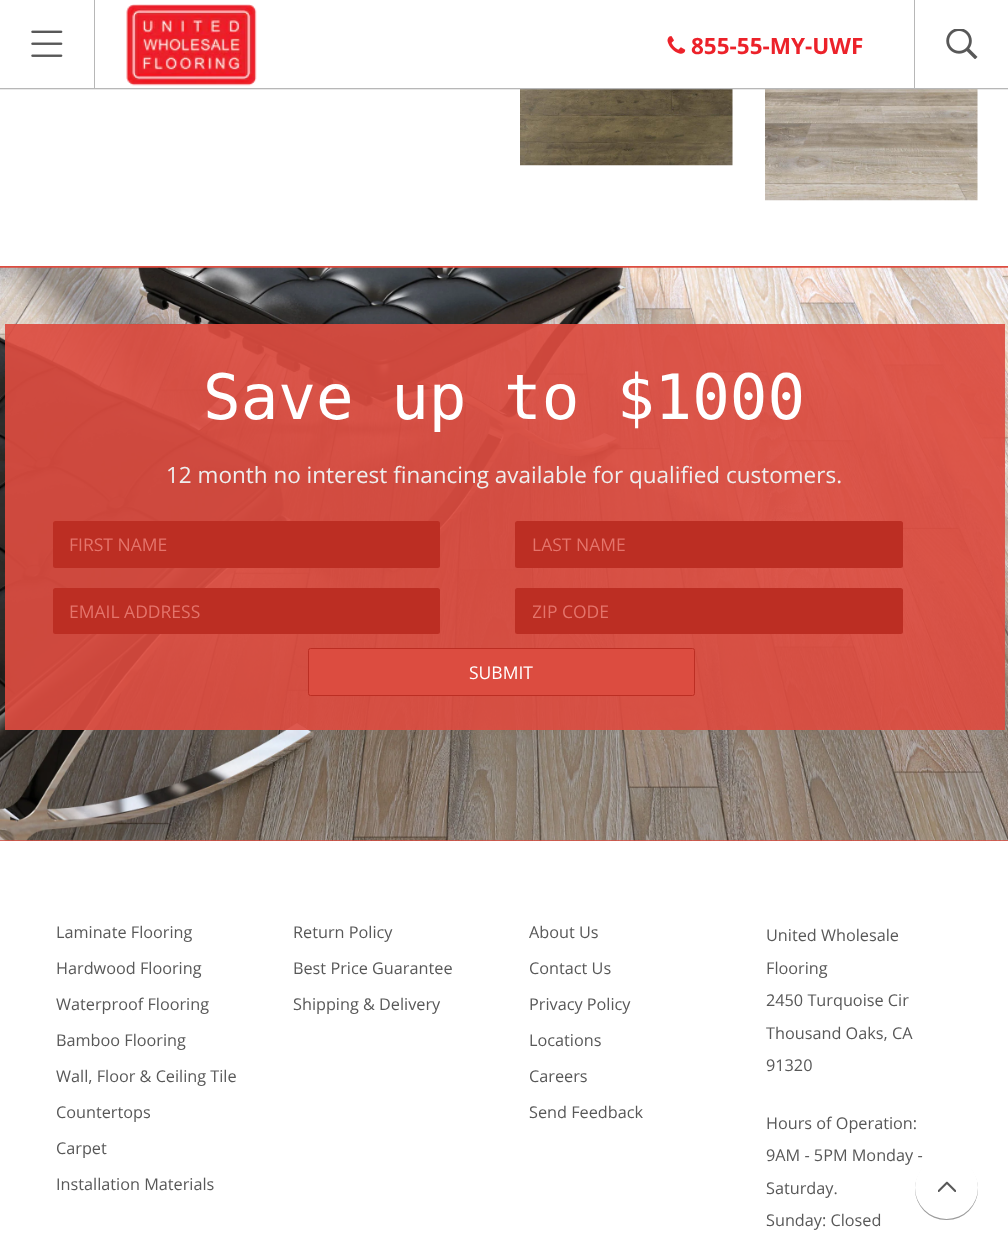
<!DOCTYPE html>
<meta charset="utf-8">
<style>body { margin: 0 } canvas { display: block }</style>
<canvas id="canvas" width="1008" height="1256"></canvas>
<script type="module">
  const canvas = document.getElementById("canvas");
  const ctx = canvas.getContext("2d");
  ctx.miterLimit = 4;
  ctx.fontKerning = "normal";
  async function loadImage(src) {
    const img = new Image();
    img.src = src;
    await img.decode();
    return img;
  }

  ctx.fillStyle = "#ffffff";
  ctx.fillRect(0, 0, 1008, 1256);
  ctx.drawImage(await loadImage("img5.png"), 520, 89, 213, 77);
  ctx.drawImage(await loadImage("img6.png"), 765, 89, 213, 112);
  ctx.fillStyle = "rgba(183, 183, 183, 0.3)";
  ctx.beginPath();
  ctx.moveTo(0, 89);
  ctx.lineTo(0, 90);
  ctx.lineTo(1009, 90);
  ctx.lineTo(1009, 1);
  ctx.lineTo(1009, 89);
  ctx.closePath();
  ctx.fill();
  ctx.fillStyle = "#b7b7b7";
  ctx.fillRect(0, 88, 1008, 1);
  ctx.drawImage(await loadImage("img1.png"), 31, 30, 32, 27);
  ctx.fillRect(94, 0, 1, 88);
  ctx.drawImage(await loadImage("img2.png"), 126, 4, 131, 82);
  ctx.drawImage(await loadImage("img3.png"), 667, 36, 19, 18);
  ctx.font = "bold 22.5px Open Sans";
  ctx.fillStyle = "#ec222a";
  ctx.fillText("855-55-MY-UWF", 691, 54);
  ctx.fillStyle = "#b7b7b7";
  ctx.fillRect(914, 0, 1, 88);
  ctx.drawImage(await loadImage("img4.png"), 946, 29, 32, 30);
  ctx.fillStyle = "#dc4c40";
  ctx.beginPath();
  ctx.moveTo(0, 266);
  ctx.lineTo(0, 268);
  ctx.lineTo(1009, 268);
  ctx.lineTo(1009, 839);
  ctx.lineTo(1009, 266);
  ctx.closePath();
  ctx.fill();
  ctx.beginPath();
  ctx.moveTo(0, 840);
  ctx.lineTo(0, 841);
  ctx.lineTo(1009, 841);
  ctx.lineTo(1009, 269);
  ctx.lineTo(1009, 840);
  ctx.closePath();
  ctx.fill();
  ctx.drawImage(await loadImage("img7.png"), 0, 267, 1008, 574);
  ctx.fillStyle = "rgba(220, 76, 64, 0.92)";
  ctx.fillRect(5, 324, 1000, 406);
  ctx.font = "62.5px DejaVu Sans Mono";
  ctx.fillStyle = "#ffffff";
  ctx.fillText("Save up to $1000", 203, 419);
  ctx.font = "22.5px Open Sans";
  ctx.fillStyle = "#eeeeee";
  ctx.fillText("12 month no interest financing available for qualified customers.", 166, 483);
  ctx.fillStyle = "#bc2e23";
  ctx.beginPath();
  ctx.roundRect(53, 521, 387, 47, 2.5);
  ctx.fill();
  ctx.font = "17.5px Open Sans";
  ctx.fillStyle = "#e4746b";
  ctx.fillText("FIRST NAME", 69, 551);
  ctx.fillStyle = "#bc2e23";
  ctx.beginPath();
  ctx.roundRect(515, 521, 388, 47, 2.5);
  ctx.fill();
  ctx.fillStyle = "#e4746b";
  ctx.fillText("LAST NAME", 532, 551);
  ctx.fillStyle = "#bc2e23";
  ctx.beginPath();
  ctx.roundRect(53, 588, 387, 46, 2.5);
  ctx.fill();
  ctx.fillStyle = "#e4746b";
  ctx.fillText("EMAIL ADDRESS", 69, 618);
  ctx.fillStyle = "#bc2e23";
  ctx.beginPath();
  ctx.roundRect(515, 588, 388, 46, 2.5);
  ctx.fill();
  ctx.save();
  ctx.beginPath();
  ctx.rect(533, 599, 352, 24);
  ctx.clip();
  ctx.fillStyle = "#e4746b";
  ctx.fillText("ZIP CODE", 532, 618);
  ctx.restore();
  ctx.fillStyle = "#dc4c40";
  ctx.beginPath();
  ctx.roundRect(308.5, 648.5, 386, 47, 2);
  ctx.fill();
  ctx.strokeStyle = "#bc2e23";
  ctx.stroke();
  ctx.fillStyle = "#ffffff";
  ctx.fillText("SUBMIT", 469, 679);
  ctx.font = "16.25px Open Sans";
  ctx.fillStyle = "#585858";
  ctx.fillText("Laminate Flooring", 56, 938);
  ctx.fillText("Hardwood Flooring", 56, 974);
  ctx.fillText("Waterproof Flooring", 56, 1010);
  ctx.fillText("Bamboo Flooring", 56, 1046);
  ctx.fillText("Wall, Floor & Ceiling Tile", 56, 1082);
  ctx.fillText("Countertops", 56, 1118);
  ctx.fillText("Carpet", 56, 1154);
  ctx.fillText("Installation Materials", 56, 1190);
  ctx.fillText("Return Policy", 293, 938);
  ctx.fillText("Best Price Guarantee", 293, 974);
  ctx.fillText("Shipping & Delivery", 293, 1010);
  ctx.fillText("About Us", 529, 938);
  ctx.fillText("Contact Us", 529, 974);
  ctx.fillText("Privacy Policy", 529, 1010);
  ctx.fillText("Locations", 529, 1046);
  ctx.fillText("Careers", 529, 1082);
  ctx.fillText("Send Feedback", 529, 1118);
  ctx.fillText("United Wholesale", 766, 941);
  ctx.fillText("Flooring", 766, 974);
  ctx.fillText("2450 Turquoise Cir", 766, 1006);
  ctx.fillText("Thousand Oaks, CA", 766, 1039);
  ctx.fillText("91320", 766, 1071);
  ctx.fillText("Hours of Operation:", 766, 1129);
  ctx.fillText("9AM - 5PM Monday -", 766, 1161);
  ctx.fillText("Saturday.", 766, 1194);
  ctx.fillText("Sunday: Closed", 766, 1226);
  ctx.fillStyle = "rgba(88, 88, 88, 0.6)";
  ctx.filter = "blur(0.5px)";
  ctx.beginPath();
  ctx.roundRect(915, 1158, 63, 62, 31);
  ctx.fill();
  ctx.filter = "none";
  ctx.fillStyle = "#ffffff";
  ctx.beginPath();
  ctx.arc(946.5, 1187.5, 31.5, 0, Math.PI * 2);
  ctx.fill();
  ctx.drawImage(await loadImage("img8.png"), 938, 1181, 18, 11);
</script>
